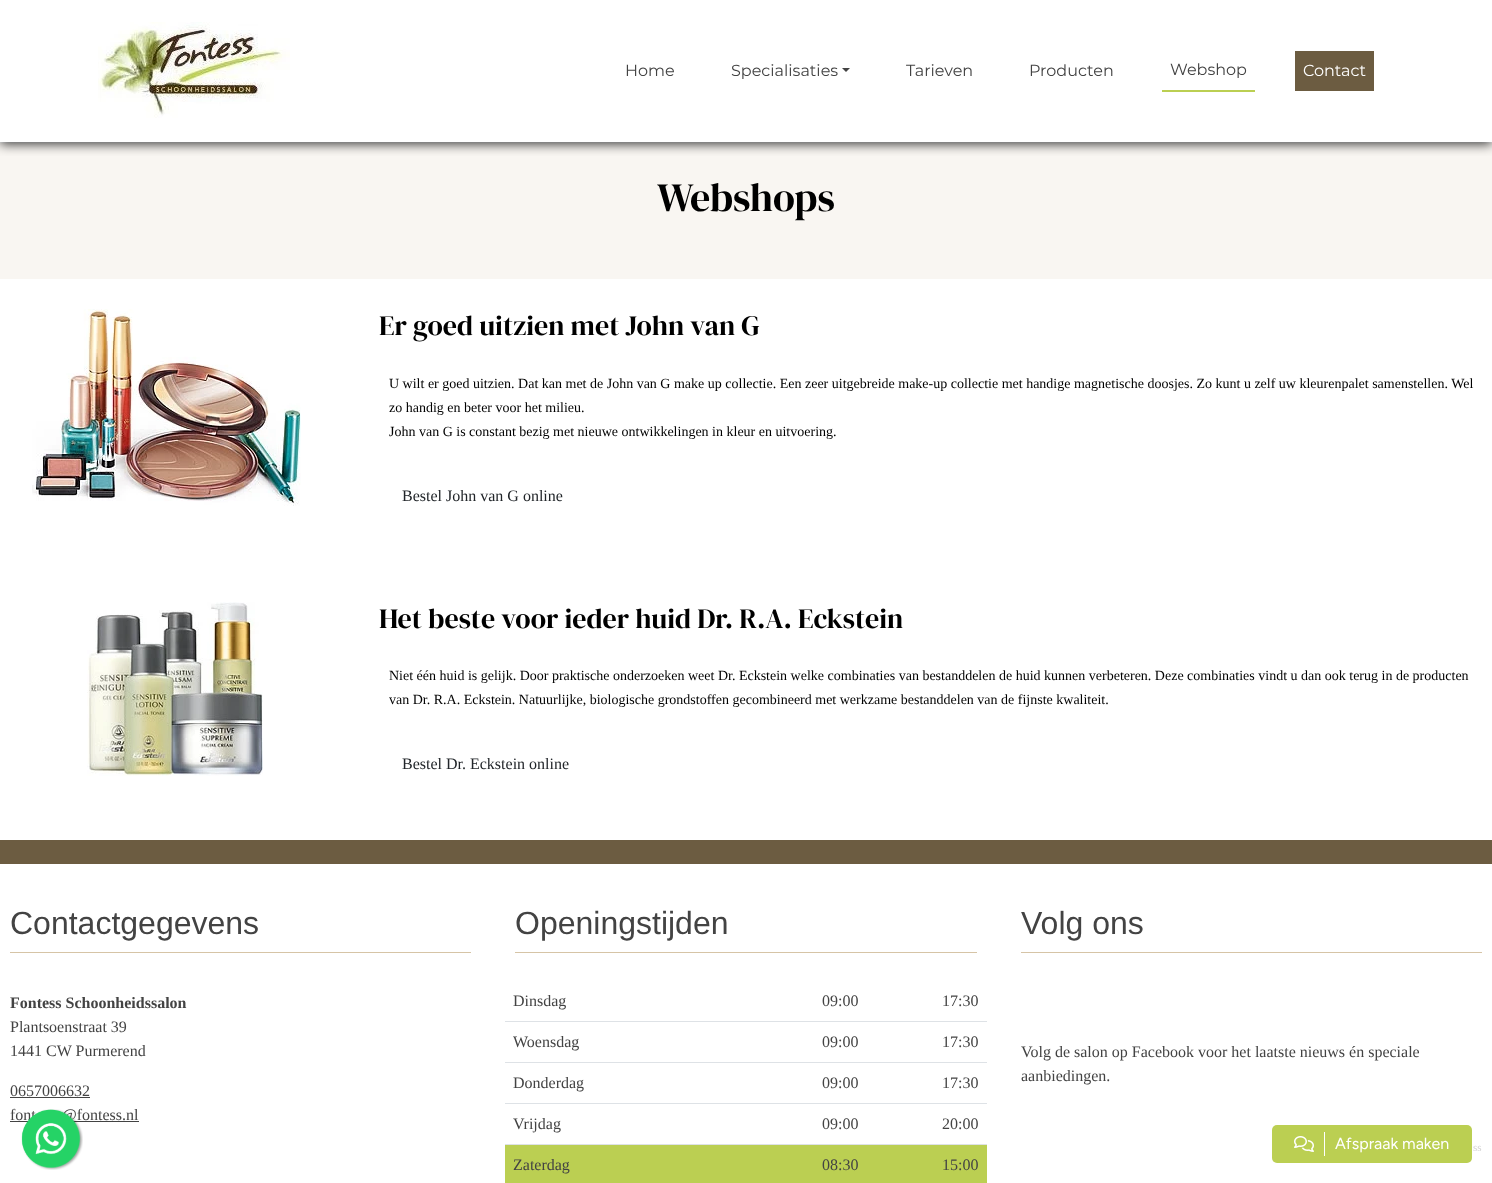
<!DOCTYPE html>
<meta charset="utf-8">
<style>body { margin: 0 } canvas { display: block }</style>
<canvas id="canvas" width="1492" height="1183"></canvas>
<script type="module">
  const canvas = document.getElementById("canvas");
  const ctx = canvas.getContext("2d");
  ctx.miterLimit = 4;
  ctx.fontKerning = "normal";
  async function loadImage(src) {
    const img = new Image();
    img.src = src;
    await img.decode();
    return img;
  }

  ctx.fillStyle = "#ffffff";
  ctx.fillRect(0, 0, 1492, 1183);
  ctx.fillStyle = "#f9f6f2";
  ctx.fillRect(0, 143, 1492, 136);
  ctx.save();
  ctx.beginPath();
  ctx.rect(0, 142, 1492, 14);
  ctx.clip();
  ctx.fillStyle = "rgba(0, 0, 0, 0.8)";
  ctx.filter = "blur(6px)";
  ctx.beginPath();
  ctx.rect(0, 2, 1492, 142);
  ctx.fill();
  ctx.filter = "none";
  ctx.restore();
  ctx.drawImage(await loadImage("img1.png"), 98, 22, 192, 96);
  ctx.font = "100 16px Montserrat";
  ctx.fillStyle = "#434343";
  ctx.fillText("Home", 625, 76);
  ctx.fillText("Specialisaties", 731, 76);
  ctx.beginPath();
  ctx.moveTo(842, 68);
  ctx.lineTo(850, 68);
  ctx.lineTo(846, 72);
  ctx.closePath();
  ctx.fill();
  ctx.fillText("Tarieven", 906, 76);
  ctx.fillText("Producten", 1029, 76);
  ctx.fillStyle = "#bbcf52";
  ctx.fillRect(1162, 90, 93, 2);
  ctx.fillStyle = "#434343";
  ctx.fillText("Webshop", 1170, 75);
  ctx.fillStyle = "#6c5c41";
  ctx.fillRect(1295, 51, 79, 40);
  ctx.fillStyle = "#ffffff";
  ctx.fillText("Contact", 1303, 76);
  ctx.font = "40px DM Serif Display";
  ctx.fillStyle = "#000000";
  ctx.fillText("Webshops", 657, 211);
  ctx.drawImage(await loadImage("img2.png"), 32, 309, 269, 197);
  ctx.font = "28px DM Serif Display";
  ctx.fillText("Er goed uitzien met John van G", 379, 335);
  ctx.font = "14px Liberation Serif";
  ctx.fillText("U wilt er goed uitzien. Dat kan met de John van G make up collectie. Een zeer uitgebreide make-up collectie met handige magnetische doosjes. Zo kunt u zelf uw kleurenpalet samenstellen. Wel", 389, 388);
  ctx.fillText("zo handig en beter voor het milieu.", 389, 412);
  ctx.fillText("John van G is constant bezig met nieuwe ontwikkelingen in kleur en uitvoering.", 389, 436);
  ctx.font = "16px Liberation Serif";
  ctx.fillStyle = "#212529";
  ctx.fillText("Bestel John van G online", 402, 501);
  ctx.drawImage(await loadImage("img3.png"), 87, 602, 176, 174);
  ctx.font = "28px DM Serif Display";
  ctx.fillStyle = "#000000";
  ctx.fillText("Het beste voor ieder huid Dr. R.A. Eckstein", 379, 628);
  ctx.font = "14px Liberation Serif";
  ctx.fillText("Niet één huid is gelijk. Door praktische onderzoeken weet Dr. Eckstein welke combinaties van bestanddelen de huid kunnen verbeteren. Deze combinaties vindt u dan ook terug in de producten", 389, 680);
  ctx.fillText("van Dr. R.A. Eckstein. Natuurlijke, biologische grondstoffen gecombineerd met werkzame bestanddelen van de fijnste kwaliteit.", 389, 704);
  ctx.font = "16px Liberation Serif";
  ctx.fillStyle = "#212529";
  ctx.fillText("Bestel Dr. Eckstein online", 402, 769);
  ctx.fillStyle = "#6c5c41";
  ctx.fillRect(0, 840, 1492, 24);
  ctx.fillStyle = "#d6c4a6";
  ctx.fillRect(10, 952, 461, 1);
  ctx.font = "32px Liberation Sans";
  ctx.fillStyle = "#434343";
  ctx.fillText("Contactgegevens", 10, 934);
  ctx.font = "bold 16px Liberation Serif";
  ctx.fillText("Fontess Schoonheidssalon", 10, 1008);
  ctx.font = "16px Liberation Serif";
  ctx.fillText("Plantsoenstraat 39", 10, 1032);
  ctx.fillText("1441 CW Purmerend", 10, 1056);
  ctx.fillText("0657006632", 10, 1096);
  ctx.fillRect(10, 1097, 80, 1);
  ctx.fillText("font", 10, 1120);
  ctx.fillRect(10, 1121, 129, 1);
  ctx.fillText("@fontess.nl", 62, 1120);
  ctx.fillStyle = "#d6c4a6";
  ctx.fillRect(515, 952, 462, 1);
  ctx.font = "32px Liberation Sans";
  ctx.fillStyle = "#434343";
  ctx.fillText("Openingstijden", 515, 934);
  ctx.font = "16px Liberation Serif";
  ctx.fillText("Dinsdag", 513, 1006);
  ctx.fillText("09:00", 822, 1006);
  ctx.fillStyle = "#dee2e6";
  ctx.fillRect(505, 1021, 482, 1);
  ctx.fillStyle = "#434343";
  ctx.fillText("17:30", 942, 1006);
  ctx.fillText("Woensdag", 513, 1047);
  ctx.fillText("09:00", 822, 1047);
  ctx.fillStyle = "#dee2e6";
  ctx.fillRect(505, 1062, 482, 1);
  ctx.fillStyle = "#434343";
  ctx.fillText("17:30", 942, 1047);
  ctx.fillText("Donderdag", 513, 1088);
  ctx.fillText("09:00", 822, 1088);
  ctx.fillStyle = "#dee2e6";
  ctx.fillRect(505, 1103, 482, 1);
  ctx.fillStyle = "#434343";
  ctx.fillText("17:30", 942, 1088);
  ctx.fillText("Vrijdag", 513, 1129);
  ctx.fillText("09:00", 822, 1129);
  ctx.fillStyle = "#dee2e6";
  ctx.fillRect(505, 1144, 482, 1);
  ctx.fillStyle = "#434343";
  ctx.fillText("20:00", 942, 1129);
  ctx.fillStyle = "#bbcf52";
  ctx.fillRect(505, 1145, 482, 38);
  ctx.fillStyle = "#434343";
  ctx.fillText("Zaterdag", 513, 1170);
  ctx.fillText("08:30", 822, 1170);
  ctx.fillText("15:00", 942, 1170);
  ctx.fillStyle = "#d6c4a6";
  ctx.fillRect(1021, 952, 461, 1);
  ctx.font = "32px Liberation Sans";
  ctx.fillStyle = "#434343";
  ctx.fillText("Volg ons", 1021, 934);
  ctx.font = "16px Liberation Serif";
  ctx.fillText("Volg de salon op Facebook voor het laatste nieuws én speciale", 1021, 1057);
  ctx.fillText("aanbiedingen.", 1021, 1081);
  ctx.drawImage(await loadImage("img4.png"), 21, 1109, 62, 61);
  ctx.fillStyle = "#bbcf52";
  ctx.beginPath();
  ctx.roundRect(1272, 1125, 200, 38, 5);
  ctx.fill();
  ctx.fillStyle = "#ffffff";
  ctx.fillRect(1324, 1132, 1, 24);
  ctx.drawImage(await loadImage("img5.png"), 1294, 1136, 20, 16);
  ctx.font = "300 16px Figtree";
  ctx.fillText("Afspraak maken", 1335, 1149);
  ctx.font = "11px Liberation Serif";
  ctx.fillStyle = "#d3d3d3";
  ctx.fillText("ss", 1473, 1151);
</script>
